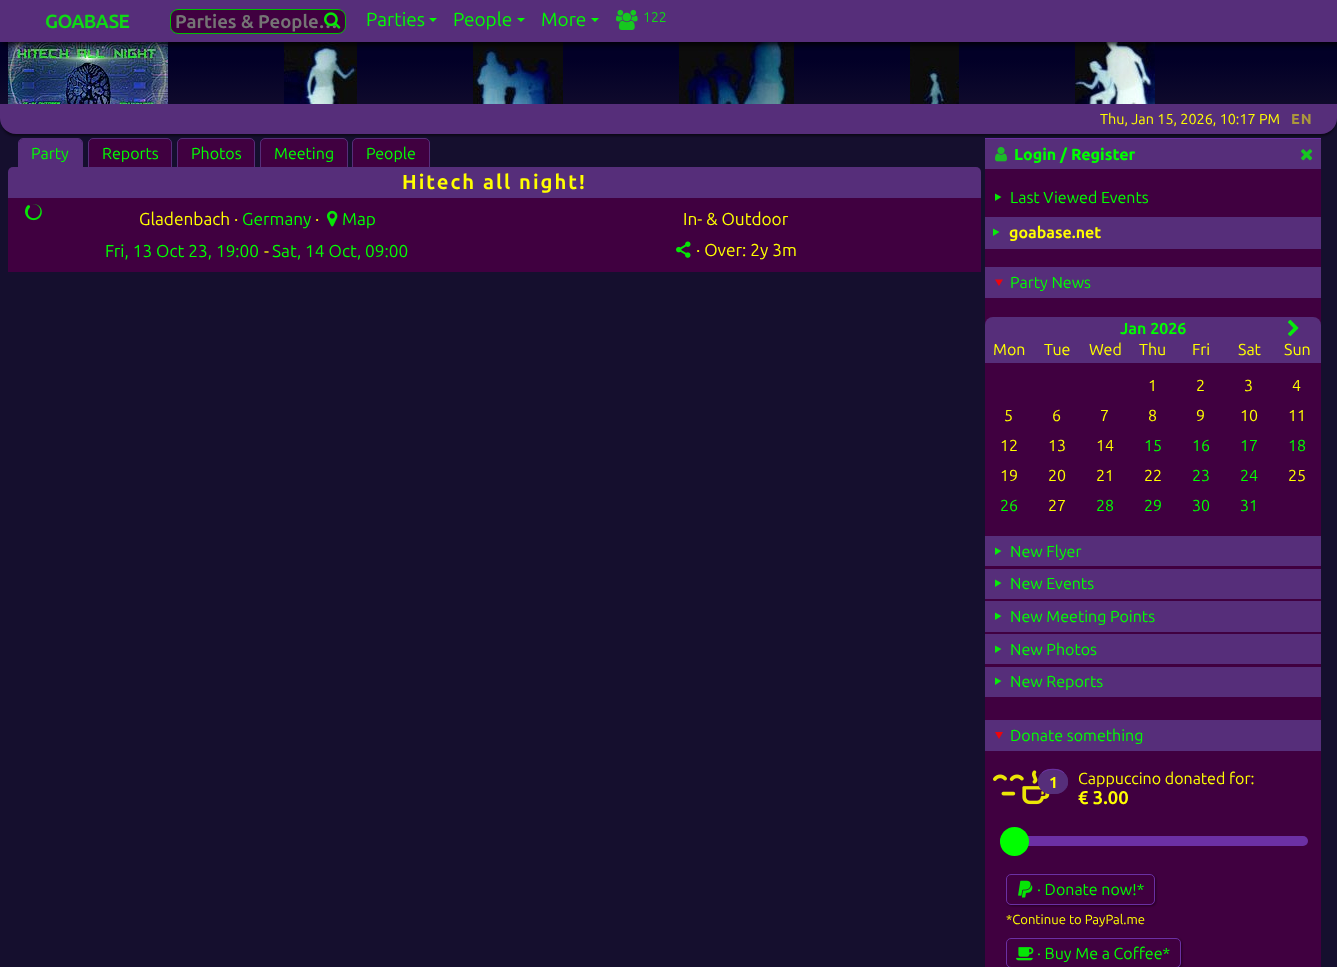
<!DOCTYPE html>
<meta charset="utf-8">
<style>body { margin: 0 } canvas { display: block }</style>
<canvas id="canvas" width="1337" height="967"></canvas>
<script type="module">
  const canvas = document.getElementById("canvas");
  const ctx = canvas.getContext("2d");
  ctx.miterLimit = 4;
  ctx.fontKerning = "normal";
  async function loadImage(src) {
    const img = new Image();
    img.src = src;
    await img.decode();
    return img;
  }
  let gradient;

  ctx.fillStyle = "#150f2e";
  ctx.fillRect(0, 0, 1337, 967);
  gradient = ctx.createLinearGradient(669, 0, 669, 124);
  gradient.addColorStop(0.48, "#020027");
  gradient.addColorStop(1, "#150f2e");
  ctx.fillStyle = gradient;
  ctx.fillRect(0, 42, 1337, 62);
  ctx.drawImage(await loadImage("img3.png"), 8, 42, 160, 62);
  ctx.drawImage(await loadImage("img4.png"), 284, 42, 73, 62);
  ctx.drawImage(await loadImage("img5.png"), 473, 42, 90, 62);
  ctx.drawImage(await loadImage("img6.png"), 679, 42, 115, 62);
  ctx.drawImage(await loadImage("img7.png"), 910, 42, 49, 62);
  ctx.drawImage(await loadImage("img8.png"), 1075, 42, 80, 62);
  ctx.fillStyle = "rgba(0, 0, 0, 0.8)";
  ctx.filter = "blur(2.5px)";
  ctx.beginPath();
  ctx.rect(3, 3, 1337, 42);
  ctx.fill();
  ctx.filter = "none";
  ctx.fillStyle = "#562e7a";
  ctx.fillRect(0, 0, 1337, 42);
  ctx.letterSpacing = "-0.75px";
  ctx.font = "bold 19px Ubuntu";
  ctx.fillStyle = "#0fd916";
  ctx.fillText("GOABASE", 45, 28);
  ctx.fillStyle = "#400040";
  ctx.beginPath();
  ctx.roundRect(170.5, 9.5, 175, 24, 7.5);
  ctx.fill();
  ctx.strokeStyle = "#00bf00";
  ctx.stroke();
  ctx.letterSpacing = "0px";
  ctx.font = "bold 18.5px Ubuntu";
  ctx.fillStyle = "#757575";
  ctx.fillText("Parties & People…", 175, 28);
  ctx.drawImage(await loadImage("img1.png"), 324, 12, 17, 17);
  ctx.font = "19px Ubuntu";
  ctx.fillStyle = "#00ff00";
  ctx.fillText("Parties", 366, 26);
  ctx.beginPath();
  ctx.moveTo(429, 18);
  ctx.lineTo(437, 18);
  ctx.lineTo(433, 22);
  ctx.closePath();
  ctx.fill();
  ctx.fillText("People", 453, 26);
  ctx.beginPath();
  ctx.moveTo(517, 18);
  ctx.lineTo(525, 18);
  ctx.lineTo(521, 22);
  ctx.closePath();
  ctx.fill();
  ctx.fillText("More", 541, 26);
  ctx.beginPath();
  ctx.moveTo(591, 18);
  ctx.lineTo(599, 18);
  ctx.lineTo(595, 22);
  ctx.closePath();
  ctx.fill();
  ctx.drawImage(await loadImage("img2.png"), 616, 9, 22, 21);
  ctx.font = "14px Ubuntu";
  ctx.fillStyle = "#0fd916";
  ctx.fillText("122", 643, 22);
  ctx.beginPath();
  ctx.roundRect(18.5, 138.5, 64, 29, [4.5, 4.5, 0, 0]);
  ctx.strokeStyle = "#562e7a";
  ctx.stroke();
  ctx.fillStyle = "#562e7a";
  ctx.beginPath();
  ctx.roundRect(19, 139, 63, 28, [4, 4, 0, 0]);
  ctx.fill();
  ctx.fillStyle = "#400040";
  ctx.beginPath();
  ctx.roundRect(88.5, 138.5, 83, 29, [4.5, 4.5, 0, 0]);
  ctx.fill();
  ctx.stroke();
  ctx.beginPath();
  ctx.roundRect(177.5, 138.5, 77, 29, [4.5, 4.5, 0, 0]);
  ctx.fill();
  ctx.stroke();
  ctx.beginPath();
  ctx.roundRect(260.5, 138.5, 87, 29, [4.5, 4.5, 0, 0]);
  ctx.fill();
  ctx.stroke();
  ctx.beginPath();
  ctx.roundRect(352.5, 138.5, 77, 29, [4.5, 4.5, 0, 0]);
  ctx.fill();
  ctx.stroke();
  ctx.fillStyle = "#562e7a";
  ctx.fillRect(985, 139, 336, 30);
  ctx.fillStyle = "#6c30a4";
  ctx.fillRect(985, 138, 336, 1);
  ctx.fillStyle = "rgba(0, 0, 0, 0.5)";
  ctx.filter = "blur(1px)";
  ctx.beginPath();
  ctx.roundRect(2, 110, 1333, 26, 14);
  ctx.fill();
  ctx.filter = "none";
  ctx.fillStyle = "#562e7a";
  ctx.beginPath();
  ctx.roundRect(0, 104, 1337, 30, [0, 0, 16, 16]);
  ctx.fill();
  ctx.font = "14.4px Ubuntu";
  ctx.fillStyle = "#ffff00";
  ctx.fillText("Thu, Jan 15, 2026, 10:17 PM", 1100, 124);
  ctx.letterSpacing = "1px";
  ctx.font = "800 14.4px Ubuntu";
  ctx.fillStyle = "#ab973d";
  ctx.fillText("EN", 1291, 124);
  ctx.letterSpacing = "0px";
  ctx.font = "16px Ubuntu";
  ctx.fillStyle = "#00ff00";
  ctx.fillText("Party", 31, 159);
  ctx.fillText("Reports", 102, 159);
  ctx.fillText("Photos", 191, 159);
  ctx.fillText("Meeting", 274, 159);
  ctx.fillText("People", 366, 159);
  ctx.fillStyle = "#562e7a";
  ctx.beginPath();
  ctx.roundRect(8, 167, 973, 30, [5, 5, 0, 0]);
  ctx.fill();
  ctx.letterSpacing = "2px";
  ctx.font = "bold 20.25px Ubuntu";
  ctx.fillStyle = "#ffff00";
  ctx.fillText("Hitech all night!", 402, 189);
  ctx.fillStyle = "#400040";
  ctx.fillRect(8, 198, 973, 74);
  ctx.fillStyle = "#562e7a";
  ctx.fillRect(8, 197, 973, 1);
  ctx.drawImage(await loadImage("img9.png"), 25, 204, 17, 17);
  ctx.letterSpacing = "0px";
  ctx.font = "17.25px Ubuntu";
  ctx.fillStyle = "#ffff00";
  ctx.fillText("Gladenbach ·", 139, 225);
  ctx.fillStyle = "#00ff00";
  ctx.fillText("Germany", 242, 225);
  ctx.fillStyle = "#ffff00";
  ctx.fillText("·", 315, 225);
  ctx.drawImage(await loadImage("img10.png"), 327, 210, 11, 17);
  ctx.fillStyle = "#00ff00";
  ctx.fillText("Map", 342, 225);
  ctx.fillText("Fri, 13 Oct 23, 19:00", 105, 257);
  ctx.fillStyle = "#ffff00";
  ctx.fillText("-", 264, 257);
  ctx.fillStyle = "#00ff00";
  ctx.fillText("Sat, 14 Oct, 09:00", 272, 257);
  ctx.fillStyle = "#ffff00";
  ctx.fillText("In- & Outdoor", 683, 225);
  ctx.drawImage(await loadImage("img11.png"), 676, 241, 15, 17);
  ctx.fillText("· Over: 2y 3m", 696, 256);
  ctx.fillStyle = "#400040";
  ctx.fillRect(985, 169, 336, 798);
  ctx.drawImage(await loadImage("img12.png"), 995, 147, 12, 15);
  ctx.font = "800 16px Ubuntu";
  ctx.fillStyle = "#00ff00";
  ctx.fillText("Login / Register", 1014, 160);
  ctx.drawImage(await loadImage("img13.png"), 1301, 149, 12, 12);
  ctx.fillStyle = "#06e606";
  ctx.beginPath();
  ctx.moveTo(995, 193.5);
  ctx.lineTo(1001.5, 197);
  ctx.lineTo(995, 201);
  ctx.closePath();
  ctx.fill();
  ctx.font = "16px Ubuntu";
  ctx.fillStyle = "#00ff00";
  ctx.fillText("Last Viewed Events", 1010, 203);
  ctx.fillStyle = "#562e7a";
  ctx.fillRect(985, 217, 336, 32);
  ctx.fillStyle = "#09ea0c";
  ctx.beginPath();
  ctx.moveTo(993, 228.5);
  ctx.lineTo(999.5, 232);
  ctx.lineTo(993, 236);
  ctx.closePath();
  ctx.fill();
  ctx.font = "bold 16px Ubuntu";
  ctx.fillStyle = "#ffff00";
  ctx.fillText("goabase.net", 1009, 238);
  ctx.fillStyle = "#562e7a";
  ctx.fillRect(985, 267, 336, 31);
  ctx.fillStyle = "#ee050c";
  ctx.beginPath();
  ctx.moveTo(1003, 279.5);
  ctx.lineTo(999, 286);
  ctx.lineTo(995, 279.5);
  ctx.closePath();
  ctx.fill();
  ctx.font = "16px Ubuntu";
  ctx.fillStyle = "#00ff00";
  ctx.fillText("Party News", 1010, 288);
  ctx.fillStyle = "#562e7a";
  ctx.beginPath();
  ctx.roundRect(985, 317, 336, 23, [8, 8, 0, 0]);
  ctx.fill();
  ctx.font = "bold 16px Ubuntu";
  ctx.fillStyle = "#00ff00";
  ctx.fillText("Jan 2026", 1120, 334);
  ctx.drawImage(await loadImage("img14.png"), 1288, 319, 11, 18);
  ctx.fillStyle = "#562e7a";
  ctx.fillRect(985, 340, 336, 23);
  ctx.font = "16px Ubuntu";
  ctx.fillStyle = "#ffff00";
  ctx.fillText("Mon", 993, 355);
  ctx.fillText("Tue", 1044, 355);
  ctx.fillText("Wed", 1089, 355);
  ctx.fillText("Thu", 1139, 355);
  ctx.fillText("Fri", 1192, 355);
  ctx.fillText("Sat", 1238, 355);
  ctx.fillText("Sun", 1284, 355);
  ctx.fillText("1", 1148, 391);
  ctx.fillText("2", 1196, 391);
  ctx.fillText("3", 1244, 391);
  ctx.fillText("4", 1292, 391);
  ctx.fillText("5", 1004, 421);
  ctx.fillText("6", 1052, 421);
  ctx.fillText("7", 1100, 421);
  ctx.fillText("8", 1148, 421);
  ctx.fillText("9", 1196, 421);
  ctx.fillText("10", 1240, 421);
  ctx.fillText("11", 1288, 421);
  ctx.fillText("12", 1000, 451);
  ctx.fillText("13", 1048, 451);
  ctx.fillText("14", 1096, 451);
  ctx.fillStyle = "#00ff00";
  ctx.fillText("15", 1144, 451);
  ctx.fillText("16", 1192, 451);
  ctx.fillText("17", 1240, 451);
  ctx.fillText("18", 1288, 451);
  ctx.fillStyle = "#ffff00";
  ctx.fillText("19", 1000, 481);
  ctx.fillText("20", 1048, 481);
  ctx.fillText("21", 1096, 481);
  ctx.fillText("22", 1144, 481);
  ctx.fillStyle = "#00ff00";
  ctx.fillText("23", 1192, 481);
  ctx.fillText("24", 1240, 481);
  ctx.fillStyle = "#ffff00";
  ctx.fillText("25", 1288, 481);
  ctx.fillStyle = "#00ff00";
  ctx.fillText("26", 1000, 511);
  ctx.fillStyle = "#ffff00";
  ctx.fillText("27", 1048, 511);
  ctx.fillStyle = "#00ff00";
  ctx.fillText("28", 1096, 511);
  ctx.fillText("29", 1144, 511);
  ctx.fillText("30", 1192, 511);
  ctx.fillText("31", 1240, 511);
  ctx.fillStyle = "#562e7a";
  ctx.fillRect(985, 536, 336, 30);
  ctx.fillRect(985, 569, 336, 30);
  ctx.fillStyle = "#09ea0c";
  ctx.beginPath();
  ctx.moveTo(995, 547.5);
  ctx.lineTo(1001.5, 551);
  ctx.lineTo(995, 555);
  ctx.closePath();
  ctx.moveTo(995, 579.5);
  ctx.lineTo(1001.5, 583);
  ctx.lineTo(995, 587);
  ctx.closePath();
  ctx.fill();
  ctx.fillStyle = "#00ff00";
  ctx.fillText("New Flyer", 1010, 557);
  ctx.fillText("New Events", 1010, 589);
  ctx.fillStyle = "#562e7a";
  ctx.fillRect(985, 601, 336, 31);
  ctx.fillRect(985, 634, 336, 30);
  ctx.fillStyle = "#09ea0c";
  ctx.beginPath();
  ctx.moveTo(995, 612.5);
  ctx.lineTo(1001.5, 616);
  ctx.lineTo(995, 620);
  ctx.closePath();
  ctx.moveTo(995, 645.5);
  ctx.lineTo(1001.5, 649);
  ctx.lineTo(995, 653);
  ctx.closePath();
  ctx.fill();
  ctx.fillStyle = "#00ff00";
  ctx.fillText("New Meeting Points", 1010, 622);
  ctx.fillText("New Photos", 1010, 655);
  ctx.fillStyle = "#562e7a";
  ctx.fillRect(985, 667, 336, 30);
  ctx.fillStyle = "#09ea0c";
  ctx.beginPath();
  ctx.moveTo(995, 677.5);
  ctx.lineTo(1001.5, 681);
  ctx.lineTo(995, 685);
  ctx.closePath();
  ctx.fill();
  ctx.fillStyle = "#00ff00";
  ctx.fillText("New Reports", 1010, 687);
  ctx.fillStyle = "#562e7a";
  ctx.fillRect(985, 720, 336, 31);
  ctx.fillStyle = "#ee050c";
  ctx.beginPath();
  ctx.moveTo(1003, 732);
  ctx.lineTo(999, 739);
  ctx.lineTo(995, 732);
  ctx.closePath();
  ctx.fill();
  ctx.fillStyle = "#00ff00";
  ctx.fillText("Donate something", 1010, 741);
  ctx.drawImage(await loadImage("img15.png"), 993, 770, 57, 35);
  ctx.fillStyle = "#562e7a";
  ctx.beginPath();
  ctx.roundRect(1038, 769, 30, 25, 12.5);
  ctx.fill();
  ctx.beginPath();
  ctx.moveTo(1042, 773);
  ctx.bezierCurveTo(1047, 768, 1059, 768, 1064, 773);
  ctx.strokeStyle = "#6c30a4";
  ctx.stroke();
  ctx.beginPath();
  ctx.moveTo(1064, 773);
  ctx.bezierCurveTo(1067, 776, 1068, 780, 1067.5, 784);
  ctx.bezierCurveTo(1066, 791.5, 1060, 793.5, 1053, 793.5);
  ctx.lineTo(1048, 793.5);
  ctx.bezierCurveTo(1042.5, 792, 1038.5, 787, 1038.5, 781.5);
  ctx.bezierCurveTo(1038.5, 778.5, 1040, 775, 1042, 773);
  ctx.strokeStyle = "#562e7a";
  ctx.stroke();
  ctx.font = "bold 16px Ubuntu";
  ctx.fillStyle = "#ffff00";
  ctx.fillText("1", 1049, 788);
  ctx.font = "16px Ubuntu";
  ctx.fillText("Cappuccino donated for:", 1078, 784);
  ctx.font = "bold 18.5px Ubuntu";
  ctx.fillText("€ 3.00", 1078, 804);
  ctx.fillStyle = "#6c30a4";
  ctx.beginPath();
  ctx.roundRect(1000, 836, 308, 10, 5);
  ctx.fill();
  ctx.fillStyle = "#00ff00";
  ctx.beginPath();
  ctx.arc(1014.5, 841.5, 14.5, 0, Math.PI * 2);
  ctx.fill();
  ctx.save();
  ctx.beginPath();
  ctx.moveTo(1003, 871);
  ctx.lineTo(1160, 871);
  ctx.lineTo(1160, 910);
  ctx.lineTo(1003, 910);
  ctx.closePath();
  ctx.moveTo(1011, 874);
  ctx.lineTo(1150, 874);
  ctx.bezierCurveTo(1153, 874, 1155, 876, 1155, 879);
  ctx.lineTo(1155, 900);
  ctx.bezierCurveTo(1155, 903, 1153, 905, 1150, 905);
  ctx.lineTo(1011, 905);
  ctx.bezierCurveTo(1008, 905, 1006, 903, 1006, 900);
  ctx.lineTo(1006, 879);
  ctx.bezierCurveTo(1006, 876, 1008, 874, 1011, 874);
  ctx.closePath();
  ctx.clip("evenodd");
  ctx.fillStyle = "rgba(0, 0, 0, 0.45)";
  ctx.filter = "blur(1px)";
  ctx.beginPath();
  ctx.roundRect(1007, 875, 149, 31, 5);
  ctx.fill();
  ctx.filter = "none";
  ctx.restore();
  ctx.beginPath();
  ctx.roundRect(1006.5, 874.5, 148, 30, 4.5);
  ctx.strokeStyle = "#6c30a4";
  ctx.stroke();
  ctx.drawImage(await loadImage("img16.png"), 1018, 880, 15, 18);
  ctx.font = "16px Ubuntu";
  ctx.fillText("· Donate now!*", 1037, 895);
  ctx.font = "13.1px Ubuntu";
  ctx.fillStyle = "#ffff00";
  ctx.fillText("*Continue to PayPal.me", 1006, 924);
  ctx.save();
  ctx.beginPath();
  ctx.moveTo(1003, 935);
  ctx.lineTo(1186, 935);
  ctx.lineTo(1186, 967);
  ctx.lineTo(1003, 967);
  ctx.closePath();
  ctx.moveTo(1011, 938);
  ctx.lineTo(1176, 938);
  ctx.bezierCurveTo(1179, 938, 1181, 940, 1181, 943);
  ctx.lineTo(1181, 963);
  ctx.bezierCurveTo(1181, 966, 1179, 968, 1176, 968);
  ctx.lineTo(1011, 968);
  ctx.bezierCurveTo(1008, 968, 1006, 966, 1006, 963);
  ctx.lineTo(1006, 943);
  ctx.bezierCurveTo(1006, 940, 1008, 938, 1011, 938);
  ctx.closePath();
  ctx.clip("evenodd");
  ctx.fillStyle = "rgba(0, 0, 0, 0.45)";
  ctx.filter = "blur(1px)";
  ctx.beginPath();
  ctx.roundRect(1007, 939, 175, 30, 5);
  ctx.fill();
  ctx.filter = "none";
  ctx.restore();
  ctx.beginPath();
  ctx.roundRect(1006.5, 938.5, 174, 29, 4.5);
  ctx.stroke();
  ctx.drawImage(await loadImage("img17.png"), 1016, 947, 18, 14);
  ctx.font = "16px Ubuntu";
  ctx.fillStyle = "#00ff00";
  ctx.fillText("· Buy Me a Coffee*", 1037, 959);
</script>
